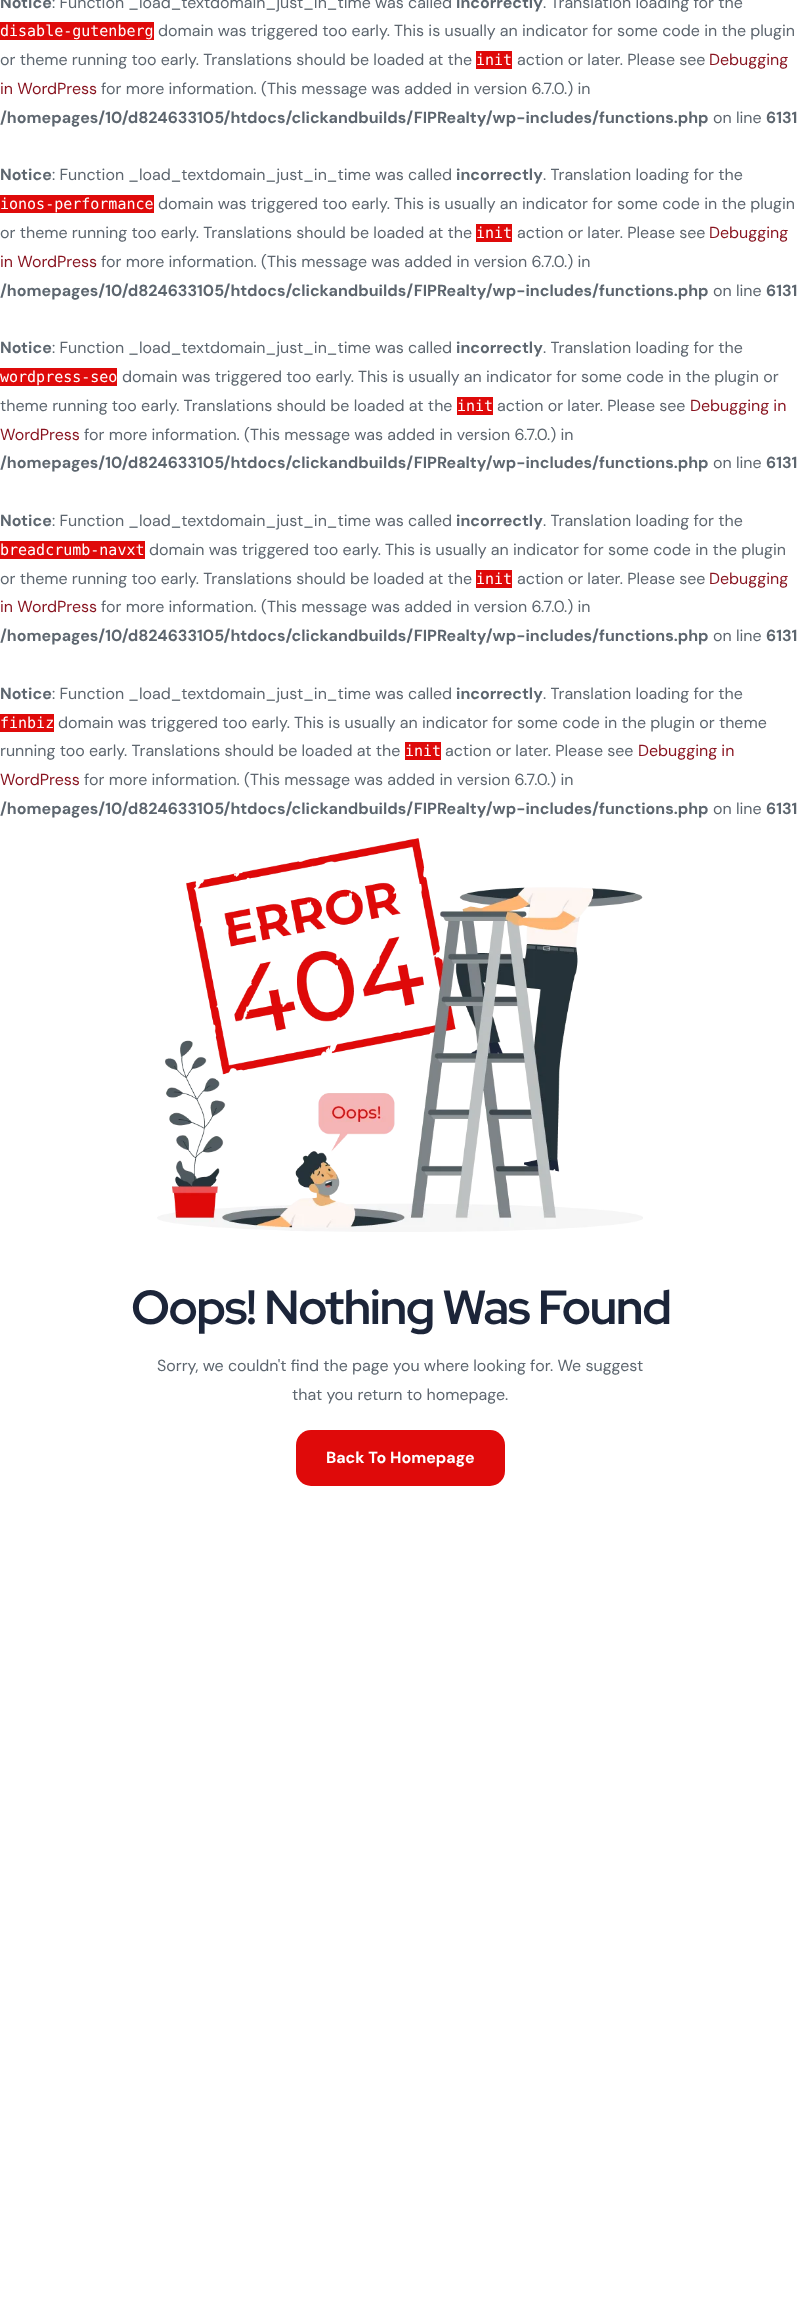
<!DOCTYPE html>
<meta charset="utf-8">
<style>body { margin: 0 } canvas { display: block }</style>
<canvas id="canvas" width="801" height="2324"></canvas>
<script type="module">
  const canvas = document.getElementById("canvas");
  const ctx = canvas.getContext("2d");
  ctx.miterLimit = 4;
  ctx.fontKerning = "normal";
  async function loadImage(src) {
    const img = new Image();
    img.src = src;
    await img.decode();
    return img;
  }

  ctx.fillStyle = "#ffffff";
  ctx.fillRect(0, 0, 801, 2324);
  ctx.font = "bold 16px DM Sans";
  ctx.fillStyle = "#5d666f";
  ctx.fillText("Notice", 0, 8);
  ctx.font = "16px DM Sans";
  ctx.fillText(": Function _load_textdomain_just_in_time was called", 52, 8);
  ctx.font = "bold 16px DM Sans";
  ctx.fillText("incorrectly", 456, 8);
  ctx.font = "16px DM Sans";
  ctx.fillText(". Translation loading for the", 543, 8);
  ctx.fillStyle = "#df0a0a";
  ctx.fillRect(0, 22, 154, 18);
  ctx.font = "15px DejaVu Sans Mono";
  ctx.fillStyle = "#ffffff";
  ctx.fillText("disable-gutenberg", 0, 36);
  ctx.font = "16px DM Sans";
  ctx.fillStyle = "#5d666f";
  ctx.fillText("domain was triggered too early. This is usually an indicator for some code in the plugin", 158, 36);
  ctx.fillText("or theme running too early. Translations should be loaded at the", 0, 65);
  ctx.fillStyle = "#df0a0a";
  ctx.fillRect(476, 51, 36, 18);
  ctx.font = "15px DejaVu Sans Mono";
  ctx.fillStyle = "#ffffff";
  ctx.fillText("init", 476, 65);
  ctx.font = "16px DM Sans";
  ctx.fillStyle = "#5d666f";
  ctx.fillText("action or later. Please see", 517, 65);
  ctx.fillStyle = "#88131f";
  ctx.fillText("Debugging", 709, 65);
  ctx.fillText("in WordPress", 0, 94);
  ctx.fillStyle = "#5d666f";
  ctx.fillText("for more information. (This message was added in version 6.7.0.) in", 101, 94);
  ctx.font = "bold 16px DM Sans";
  ctx.fillText("/homepages/10/d824633105/htdocs/clickandbuilds/FIPRealty/wp-includes/functions.php", 0, 123);
  ctx.font = "16px DM Sans";
  ctx.fillText("on line", 713, 123);
  ctx.font = "bold 16px DM Sans";
  ctx.fillText("6131", 766, 123);
  ctx.fillText("Notice", 0, 180);
  ctx.font = "16px DM Sans";
  ctx.fillText(": Function _load_textdomain_just_in_time was called", 52, 180);
  ctx.font = "bold 16px DM Sans";
  ctx.fillText("incorrectly", 456, 180);
  ctx.font = "16px DM Sans";
  ctx.fillText(". Translation loading for the", 543, 180);
  ctx.fillStyle = "#df0a0a";
  ctx.fillRect(0, 195, 154, 18);
  ctx.font = "15px DejaVu Sans Mono";
  ctx.fillStyle = "#ffffff";
  ctx.fillText("ionos-performance", 0, 209);
  ctx.font = "16px DM Sans";
  ctx.fillStyle = "#5d666f";
  ctx.fillText("domain was triggered too early. This is usually an indicator for some code in the plugin", 158, 209);
  ctx.fillText("or theme running too early. Translations should be loaded at the", 0, 238);
  ctx.fillStyle = "#df0a0a";
  ctx.fillRect(476, 224, 36, 18);
  ctx.font = "15px DejaVu Sans Mono";
  ctx.fillStyle = "#ffffff";
  ctx.fillText("init", 476, 238);
  ctx.font = "16px DM Sans";
  ctx.fillStyle = "#5d666f";
  ctx.fillText("action or later. Please see", 517, 238);
  ctx.fillStyle = "#88131f";
  ctx.fillText("Debugging", 709, 238);
  ctx.fillText("in WordPress", 0, 267);
  ctx.fillStyle = "#5d666f";
  ctx.fillText("for more information. (This message was added in version 6.7.0.) in", 101, 267);
  ctx.font = "bold 16px DM Sans";
  ctx.fillText("/homepages/10/d824633105/htdocs/clickandbuilds/FIPRealty/wp-includes/functions.php", 0, 296);
  ctx.font = "16px DM Sans";
  ctx.fillText("on line", 713, 296);
  ctx.font = "bold 16px DM Sans";
  ctx.fillText("6131", 766, 296);
  ctx.fillText("Notice", 0, 353);
  ctx.font = "16px DM Sans";
  ctx.fillText(": Function _load_textdomain_just_in_time was called", 52, 353);
  ctx.font = "bold 16px DM Sans";
  ctx.fillText("incorrectly", 456, 353);
  ctx.font = "16px DM Sans";
  ctx.fillText(". Translation loading for the", 543, 353);
  ctx.fillStyle = "#df0a0a";
  ctx.fillRect(0, 368, 117, 18);
  ctx.font = "15px DejaVu Sans Mono";
  ctx.fillStyle = "#ffffff";
  ctx.fillText("wordpress-seo", 0, 382);
  ctx.font = "16px DM Sans";
  ctx.fillStyle = "#5d666f";
  ctx.fillText("domain was triggered too early. This is usually an indicator for some code in the plugin or", 122, 382);
  ctx.fillText("theme running too early. Translations should be loaded at the", 0, 411);
  ctx.fillStyle = "#df0a0a";
  ctx.fillRect(457, 397, 36, 18);
  ctx.font = "15px DejaVu Sans Mono";
  ctx.fillStyle = "#ffffff";
  ctx.fillText("init", 457, 411);
  ctx.font = "16px DM Sans";
  ctx.fillStyle = "#5d666f";
  ctx.fillText("action or later. Please see", 497, 411);
  ctx.fillStyle = "#88131f";
  ctx.fillText("Debugging in", 690, 411);
  ctx.fillText("WordPress", 0, 440);
  ctx.fillStyle = "#5d666f";
  ctx.fillText("for more information. (This message was added in version 6.7.0.) in", 84, 440);
  ctx.font = "bold 16px DM Sans";
  ctx.fillText("/homepages/10/d824633105/htdocs/clickandbuilds/FIPRealty/wp-includes/functions.php", 0, 468);
  ctx.font = "16px DM Sans";
  ctx.fillText("on line", 713, 468);
  ctx.font = "bold 16px DM Sans";
  ctx.fillText("6131", 766, 468);
  ctx.fillText("Notice", 0, 526);
  ctx.font = "16px DM Sans";
  ctx.fillText(": Function _load_textdomain_just_in_time was called", 52, 526);
  ctx.font = "bold 16px DM Sans";
  ctx.fillText("incorrectly", 456, 526);
  ctx.font = "16px DM Sans";
  ctx.fillText(". Translation loading for the", 543, 526);
  ctx.fillStyle = "#df0a0a";
  ctx.fillRect(0, 541, 145, 18);
  ctx.font = "15px DejaVu Sans Mono";
  ctx.fillStyle = "#ffffff";
  ctx.fillText("breadcrumb-navxt", 0, 555);
  ctx.font = "16px DM Sans";
  ctx.fillStyle = "#5d666f";
  ctx.fillText("domain was triggered too early. This is usually an indicator for some code in the plugin", 149, 555);
  ctx.fillText("or theme running too early. Translations should be loaded at the", 0, 584);
  ctx.fillStyle = "#df0a0a";
  ctx.fillRect(476, 570, 36, 18);
  ctx.font = "15px DejaVu Sans Mono";
  ctx.fillStyle = "#ffffff";
  ctx.fillText("init", 476, 584);
  ctx.font = "16px DM Sans";
  ctx.fillStyle = "#5d666f";
  ctx.fillText("action or later. Please see", 517, 584);
  ctx.fillStyle = "#88131f";
  ctx.fillText("Debugging", 709, 584);
  ctx.fillText("in WordPress", 0, 612);
  ctx.fillStyle = "#5d666f";
  ctx.fillText("for more information. (This message was added in version 6.7.0.) in", 101, 612);
  ctx.font = "bold 16px DM Sans";
  ctx.fillText("/homepages/10/d824633105/htdocs/clickandbuilds/FIPRealty/wp-includes/functions.php", 0, 641);
  ctx.font = "16px DM Sans";
  ctx.fillText("on line", 713, 641);
  ctx.font = "bold 16px DM Sans";
  ctx.fillText("6131", 766, 641);
  ctx.fillText("Notice", 0, 699);
  ctx.font = "16px DM Sans";
  ctx.fillText(": Function _load_textdomain_just_in_time was called", 52, 699);
  ctx.font = "bold 16px DM Sans";
  ctx.fillText("incorrectly", 456, 699);
  ctx.font = "16px DM Sans";
  ctx.fillText(". Translation loading for the", 543, 699);
  ctx.fillStyle = "#df0a0a";
  ctx.fillRect(0, 714, 54, 18);
  ctx.font = "15px DejaVu Sans Mono";
  ctx.fillStyle = "#ffffff";
  ctx.fillText("finbiz", 0, 728);
  ctx.font = "16px DM Sans";
  ctx.fillStyle = "#5d666f";
  ctx.fillText("domain was triggered too early. This is usually an indicator for some code in the plugin or theme", 58, 728);
  ctx.fillText("running too early. Translations should be loaded at the", 0, 756);
  ctx.fillStyle = "#df0a0a";
  ctx.fillRect(405, 742, 36, 18);
  ctx.font = "15px DejaVu Sans Mono";
  ctx.fillStyle = "#ffffff";
  ctx.fillText("init", 405, 756);
  ctx.font = "16px DM Sans";
  ctx.fillStyle = "#5d666f";
  ctx.fillText("action or later. Please see", 445, 756);
  ctx.fillStyle = "#88131f";
  ctx.fillText("Debugging in", 638, 756);
  ctx.fillText("WordPress", 0, 785);
  ctx.fillStyle = "#5d666f";
  ctx.fillText("for more information. (This message was added in version 6.7.0.) in", 84, 785);
  ctx.font = "bold 16px DM Sans";
  ctx.fillText("/homepages/10/d824633105/htdocs/clickandbuilds/FIPRealty/wp-includes/functions.php", 0, 814);
  ctx.font = "16px DM Sans";
  ctx.fillText("on line", 713, 814);
  ctx.font = "bold 16px DM Sans";
  ctx.fillText("6131", 766, 814);
  ctx.drawImage(await loadImage("img1.png"), 157, 838, 486, 394);
  ctx.letterSpacing = "-1.4px";
  ctx.font = "bold 48px Red Hat Display";
  ctx.fillStyle = "#1c2539";
  ctx.fillText("Oops! Nothing Was Found", 131, 1324);
  ctx.letterSpacing = "0px";
  ctx.font = "16px DM Sans";
  ctx.fillStyle = "#5d666f";
  ctx.fillText("Sorry, we couldn't find the page you where looking for. We suggest", 157, 1371);
  ctx.fillText("that you return to homepage.", 292, 1400);
  ctx.fillStyle = "#df0a0a";
  ctx.beginPath();
  ctx.roundRect(296, 1430, 209, 56, 15);
  ctx.fill();
  ctx.font = "bold 16px DM Sans";
  ctx.fillStyle = "#ffffff";
  ctx.fillText("Back To Homepage", 326, 1463);
</script>
